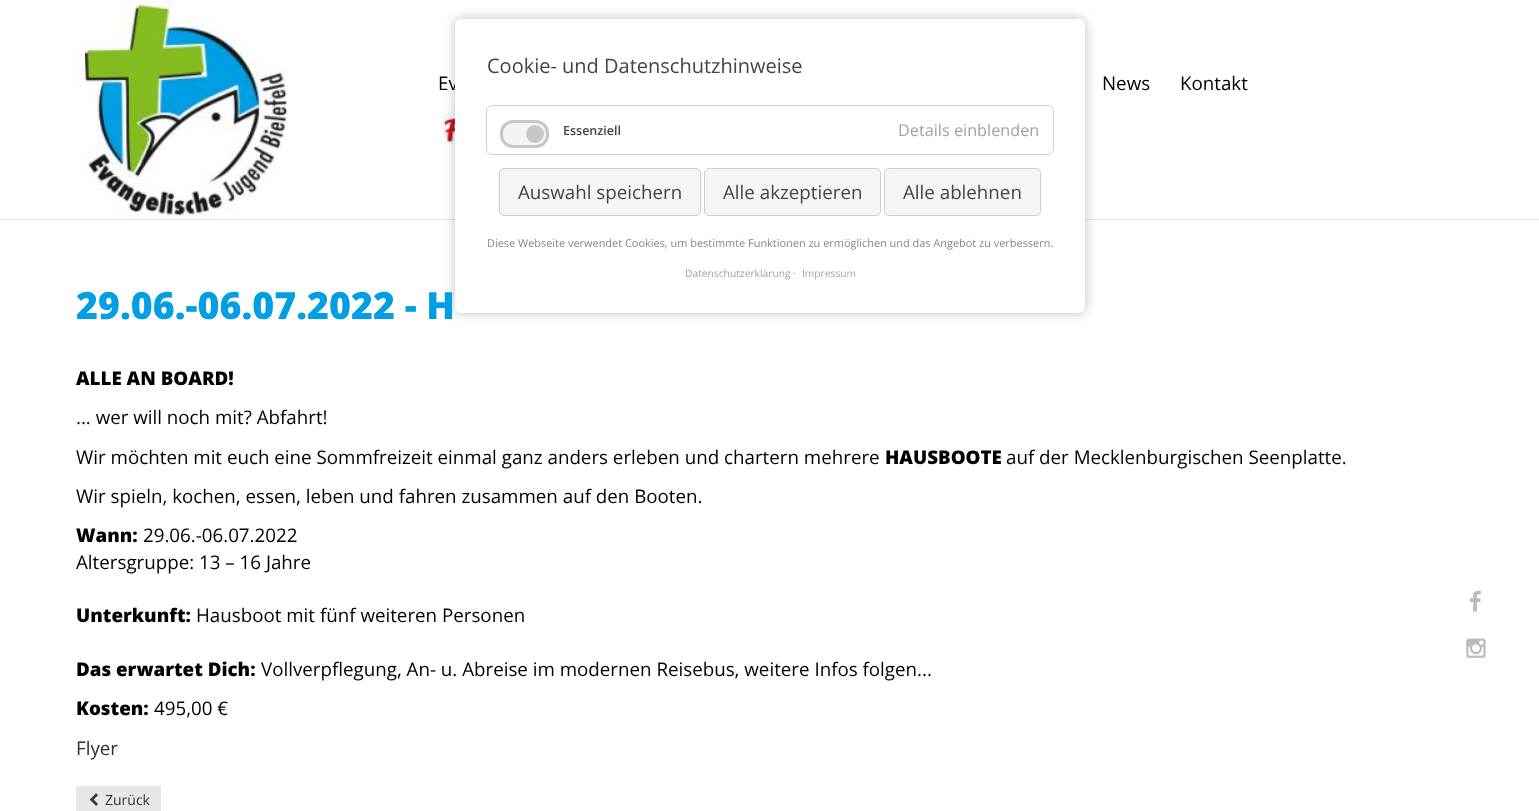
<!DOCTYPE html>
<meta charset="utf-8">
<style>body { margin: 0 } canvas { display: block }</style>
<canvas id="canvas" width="1539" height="811"></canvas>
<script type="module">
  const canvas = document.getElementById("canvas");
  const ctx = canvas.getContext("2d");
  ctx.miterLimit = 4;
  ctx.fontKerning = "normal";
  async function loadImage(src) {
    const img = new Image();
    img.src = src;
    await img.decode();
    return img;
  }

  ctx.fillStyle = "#ffffff";
  ctx.fillRect(0, 0, 1539, 811);
  ctx.fillStyle = "#e6e6e6";
  ctx.fillRect(0, 219, 1539, 1);
  ctx.drawImage(await loadImage("img2.png"), 442, 104, 13, 80);
  ctx.fillStyle = "rgba(0, 0, 0, 0.25)";
  ctx.filter = "blur(6px)";
  ctx.beginPath();
  ctx.roundRect(455, 19, 630, 294, 6);
  ctx.fill();
  ctx.filter = "none";
  ctx.font = "18.75px Open Sans";
  ctx.fillStyle = "#000000";
  ctx.fillText("Ev", 438, 90);
  ctx.fillStyle = "#ffffff";
  ctx.beginPath();
  ctx.roundRect(455, 19, 630, 294, 6);
  ctx.fill();
  ctx.font = "20px Open Sans";
  ctx.fillStyle = "#444444";
  ctx.fillText("Cookie- und Datenschutzhinweise", 487, 73);
  ctx.beginPath();
  ctx.roundRect(486.5, 105.5, 567, 49, 5.5);
  ctx.strokeStyle = "#d0d0d0";
  ctx.stroke();
  ctx.fillStyle = "#f4f4f4";
  ctx.beginPath();
  ctx.roundRect(501.5, 121.5, 46, 25, 11.5);
  ctx.fill();
  ctx.strokeStyle = "#c8c7c5";
  ctx.lineWidth = 3;
  ctx.stroke();
  ctx.fillStyle = "#c8c7c5";
  ctx.beginPath();
  ctx.arc(535, 134, 9, 0, Math.PI * 2);
  ctx.fill();
  ctx.font = "600 12.5px Open Sans";
  ctx.fillStyle = "#444444";
  ctx.fillText("Essenziell", 563, 135);
  ctx.font = "16.25px Open Sans";
  ctx.fillStyle = "#a2a2a2";
  ctx.fillText("Details einblenden", 898, 136);
  ctx.fillStyle = "#f5f5f5";
  ctx.beginPath();
  ctx.roundRect(499.5, 168.5, 201, 47, 4.5);
  ctx.fill();
  ctx.strokeStyle = "#cfcfcf";
  ctx.lineWidth = 1;
  ctx.stroke();
  ctx.font = "18.75px Open Sans";
  ctx.fillStyle = "#444444";
  ctx.fillText("Auswahl speichern", 518, 199);
  ctx.fillStyle = "#f5f5f5";
  ctx.beginPath();
  ctx.roundRect(704.5, 168.5, 176, 47, 4.5);
  ctx.fill();
  ctx.stroke();
  ctx.fillStyle = "#444444";
  ctx.fillText("Alle akzeptieren", 723, 199);
  ctx.fillStyle = "#f5f5f5";
  ctx.beginPath();
  ctx.roundRect(884.5, 168.5, 156, 47, 4.5);
  ctx.fill();
  ctx.stroke();
  ctx.fillStyle = "#444444";
  ctx.fillText("Alle ablehnen", 903, 199);
  ctx.font = "10.95px Open Sans";
  ctx.fillStyle = "#868686";
  ctx.fillText("Diese Webseite verwendet Cookies, um bestimmte Funktionen zu ermöglichen und das Angebot zu verbessern.", 487, 247);
  ctx.font = "10.25px Open Sans";
  ctx.fillStyle = "#a2a2a2";
  ctx.fillText("Datenschutzerklärung", 685, 277);
  ctx.fillText("·", 793, 277);
  ctx.fillText("Impressum", 802, 277);
  ctx.drawImage(await loadImage("img1.png"), 76, 0, 211, 219);
  ctx.font = "18.75px Open Sans";
  ctx.fillStyle = "#000000";
  ctx.fillText("News", 1102, 90);
  ctx.fillText("Kontakt", 1180, 90);
  ctx.font = "800 37.5px Open Sans";
  ctx.fillStyle = "#009fe3";
  ctx.fillText("29.06.-06.07.2022 - H", 76, 319);
  ctx.font = "800 18.75px Open Sans";
  ctx.fillStyle = "#000000";
  ctx.fillText("ALLE AN BOARD!", 76, 385);
  ctx.font = "18.75px Open Sans";
  ctx.fillText("... wer will noch mit? Abfahrt!", 76, 424);
  ctx.fillText("Wir möchten mit euch eine Sommfreizeit einmal ganz anders erleben und chartern mehrere", 76, 464);
  ctx.font = "800 18.75px Open Sans";
  ctx.fillText("HAUSBOOTE", 885, 464);
  ctx.font = "18.75px Open Sans";
  ctx.fillText("auf der Mecklenburgischen Seenplatte.", 1006, 464);
  ctx.fillText("Wir spieln, kochen, essen, leben und fahren zusammen auf den Booten.", 76, 503);
  ctx.font = "800 18.75px Open Sans";
  ctx.fillText("Wann:", 76, 542);
  ctx.font = "18.75px Open Sans";
  ctx.fillText("29.06.-06.07.2022", 143, 542);
  ctx.fillText("Altersgruppe: 13 – 16 Jahre", 76, 569);
  ctx.font = "800 18.75px Open Sans";
  ctx.fillText("Unterkunft:", 76, 622);
  ctx.font = "18.75px Open Sans";
  ctx.fillText("Hausboot mit fünf weiteren Personen", 196, 622);
  ctx.font = "800 18.75px Open Sans";
  ctx.fillText("Das erwartet Dich:", 76, 676);
  ctx.font = "18.75px Open Sans";
  ctx.fillText("Vollverpflegung, An- u. Abreise im modernen Reisebus, weitere Infos folgen...", 261, 676);
  ctx.font = "800 18.75px Open Sans";
  ctx.fillText("Kosten:", 76, 715);
  ctx.font = "18.75px Open Sans";
  ctx.fillText("495,00 €", 154, 715);
  ctx.fillStyle = "#2f2f2f";
  ctx.fillText("Flyer", 76, 755);
  ctx.fillStyle = "#e7e7e7";
  ctx.fillRect(76, 786, 85, 25);
  ctx.drawImage(await loadImage("img3.png"), 90, 793, 8, 13);
  ctx.font = "14px Open Sans";
  ctx.fillStyle = "#353535";
  ctx.fillText("Zurück", 105, 805);
  ctx.drawImage(await loadImage("img4.png"), 1469, 590, 12, 22);
  ctx.drawImage(await loadImage("img5.png"), 1466, 638, 20, 20);
</script>
